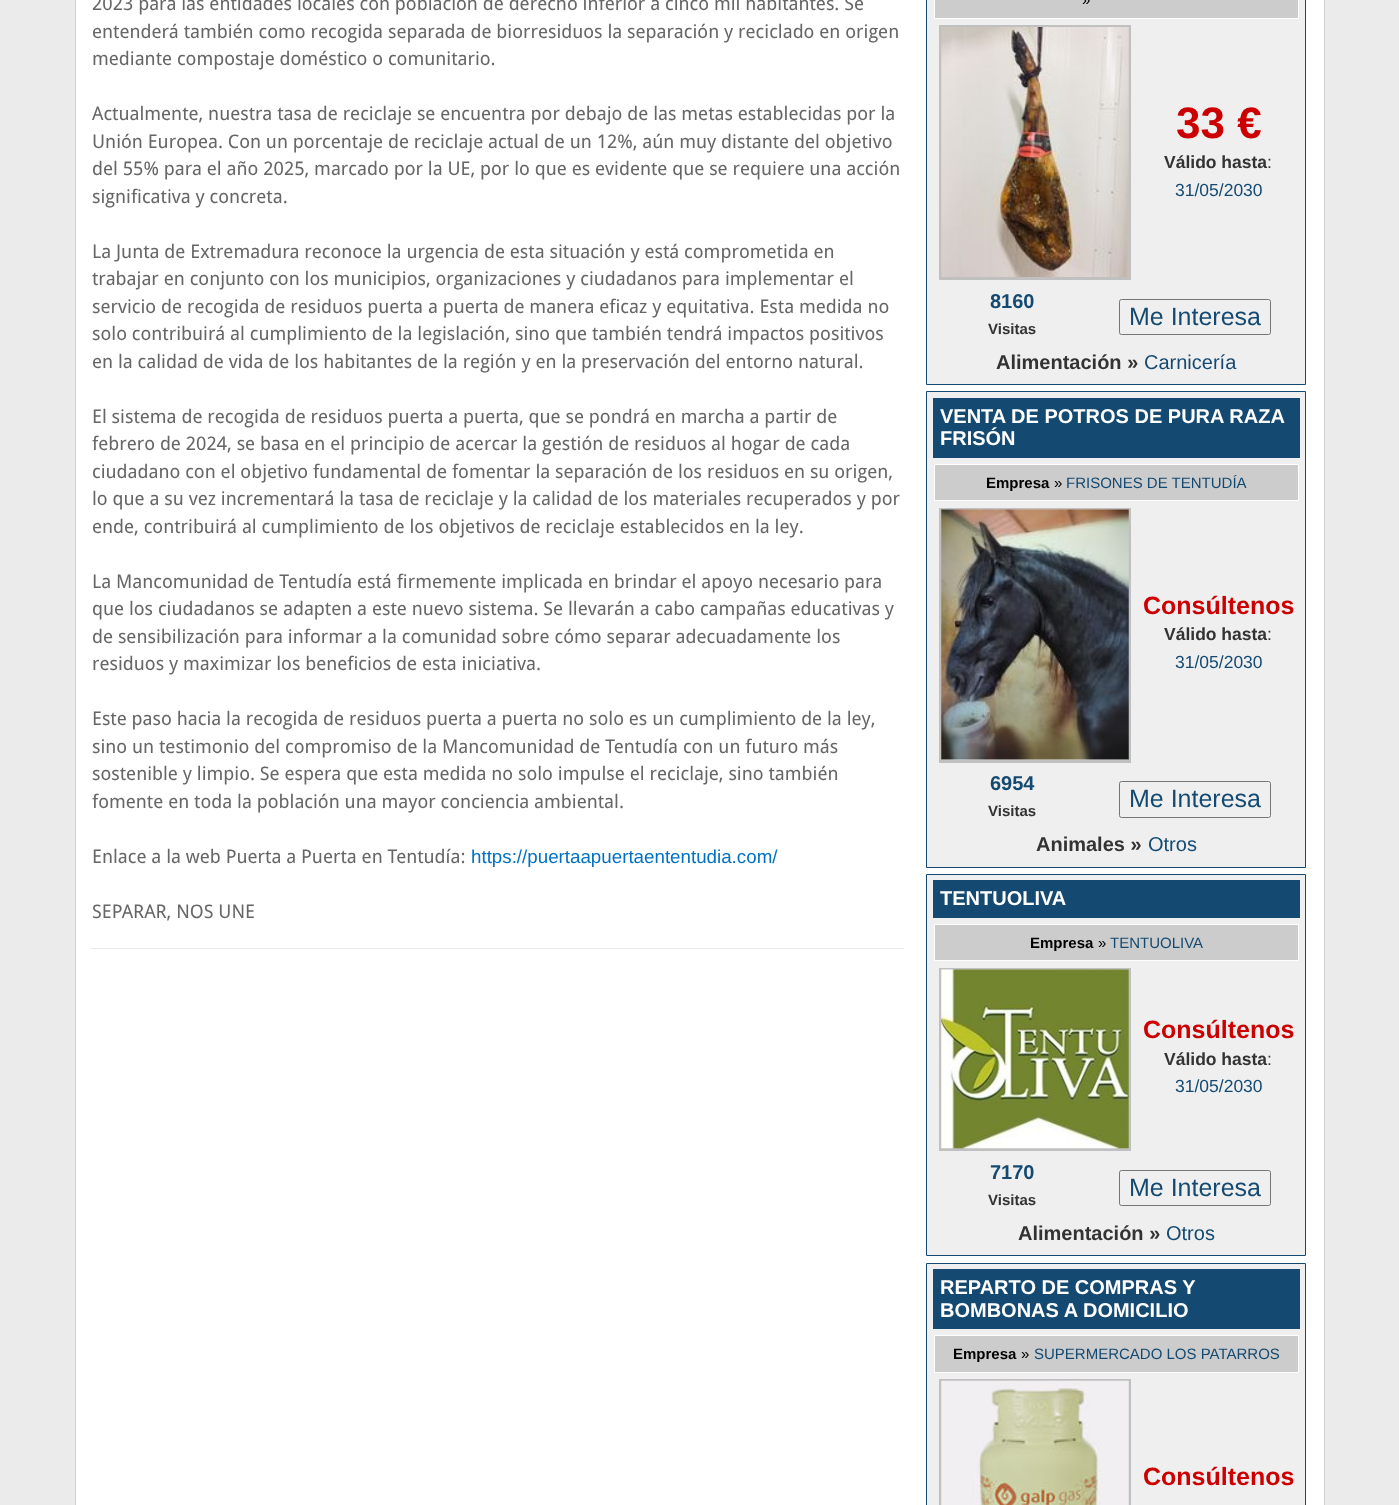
<!DOCTYPE html>
<meta charset="utf-8">
<style>body { margin: 0 } canvas { display: block }</style>
<canvas id="canvas" width="1399" height="1505"></canvas>
<script type="module">
  const canvas = document.getElementById("canvas");
  const ctx = canvas.getContext("2d");
  ctx.miterLimit = 4;
  ctx.fontKerning = "normal";
  async function loadImage(src) {
    const img = new Image();
    img.src = src;
    await img.decode();
    return img;
  }

  ctx.fillStyle = "#ebebeb";
  ctx.fillRect(0, 0, 1399, 1505);
  ctx.fillStyle = "#ffffff";
  ctx.fillRect(76, 0, 1248, 1505);
  ctx.fillStyle = "#d0d0d0";
  ctx.fillRect(1324, 0, 1, 1505);
  ctx.fillRect(75, 0, 1, 1505);
  ctx.font = "18.75px Droid Sans";
  ctx.fillStyle = "#666666";
  ctx.fillText("2023 para las entidades locales con población de derecho inferior a cinco mil habitantes. Se", 92, 10);
  ctx.fillText("entenderá también como recogida separada de biorresiduos la separación y reciclado en origen", 92, 38);
  ctx.fillText("mediante compostaje doméstico o comunitario.", 92, 65);
  ctx.fillText("Actualmente, nuestra tasa de reciclaje se encuentra por debajo de las metas establecidas por la", 92, 120);
  ctx.fillText("Unión Europea. Con un porcentaje de reciclaje actual de un 12%, aún muy distante del objetivo", 92, 148);
  ctx.fillText("del 55% para el año 2025, marcado por la UE, por lo que es evidente que se requiere una acción", 92, 175);
  ctx.fillText("significativa y concreta.", 92, 203);
  ctx.fillText("La Junta de Extremadura reconoce la urgencia de esta situación y está comprometida en", 92, 258);
  ctx.fillText("trabajar en conjunto con los municipios, organizaciones y ciudadanos para implementar el", 92, 285);
  ctx.fillText("servicio de recogida de residuos puerta a puerta de manera eficaz y equitativa. Esta medida no", 92, 313);
  ctx.fillText("solo contribuirá al cumplimiento de la legislación, sino que también tendrá impactos positivos", 92, 340);
  ctx.fillText("en la calidad de vida de los habitantes de la región y en la preservación del entorno natural.", 92, 368);
  ctx.fillText("El sistema de recogida de residuos puerta a puerta, que se pondrá en marcha a partir de", 92, 423);
  ctx.fillText("febrero de 2024, se basa en el principio de acercar la gestión de residuos al hogar de cada", 92, 450);
  ctx.fillText("ciudadano con el objetivo fundamental de fomentar la separación de los residuos en su origen,", 92, 478);
  ctx.fillText("lo que a su vez incrementará la tasa de reciclaje y la calidad de los materiales recuperados y por", 92, 505);
  ctx.fillText("ende, contribuirá al cumplimiento de los objetivos de reciclaje establecidos en la ley.", 92, 533);
  ctx.fillText("La Mancomunidad de Tentudía está firmemente implicada en brindar el apoyo necesario para", 92, 588);
  ctx.fillText("que los ciudadanos se adapten a este nuevo sistema. Se llevarán a cabo campañas educativas y", 92, 615);
  ctx.fillText("de sensibilización para informar a la comunidad sobre cómo separar adecuadamente los", 92, 643);
  ctx.fillText("residuos y maximizar los beneficios de esta iniciativa.", 92, 670);
  ctx.fillText("Este paso hacia la recogida de residuos puerta a puerta no solo es un cumplimiento de la ley,", 92, 725);
  ctx.fillText("sino un testimonio del compromiso de la Mancomunidad de Tentudía con un futuro más", 92, 753);
  ctx.fillText("sostenible y limpio. Se espera que esta medida no solo impulse el reciclaje, sino también", 92, 780);
  ctx.fillText("fomente en toda la población una mayor conciencia ambiental.", 92, 808);
  ctx.fillText("Enlace a la web Puerta a Puerta en Tentudía:", 92, 863);
  ctx.font = "18.75px Liberation Sans";
  ctx.fillStyle = "#0071c3";
  ctx.fillText("https://puertaapuertaententudia.com/", 471, 863);
  ctx.font = "18.75px Droid Sans";
  ctx.fillStyle = "#666666";
  ctx.fillText("SEPARAR, NOS UNE", 92, 918);
  ctx.fillStyle = "#ebebeb";
  ctx.fillRect(90, 948, 814, 1);
  ctx.fillStyle = "#efefef";
  ctx.beginPath();
  ctx.rect(926.5, -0.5, 379, 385);
  ctx.fill();
  ctx.strokeStyle = "#144a71";
  ctx.stroke();
  ctx.fillStyle = "#cccccc";
  ctx.beginPath();
  ctx.rect(934.5, -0.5, 364, 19);
  ctx.fill();
  ctx.strokeStyle = "#ffffff";
  ctx.stroke();
  ctx.font = "15px Liberation Sans";
  ctx.fillStyle = "#000000";
  ctx.fillText("»", 1082, 5);
  ctx.strokeStyle = "#c0c0c0";
  ctx.lineWidth = 3;
  ctx.strokeRect(940.5, 26.5, 189, 252);
  ctx.drawImage(await loadImage("img1.png"), 941, 27, 188, 250);
  ctx.font = "bold 44px Liberation Sans";
  ctx.fillStyle = "#cc0000";
  ctx.fillText("33 €", 1176, 138);
  ctx.font = "bold 17.5px Liberation Sans";
  ctx.fillStyle = "#333333";
  ctx.fillText("Válido hasta", 1164, 168);
  ctx.font = "17.5px Liberation Sans";
  ctx.fillText(":", 1267, 168);
  ctx.fillStyle = "#144a71";
  ctx.fillText("31/05/2030", 1175, 196);
  ctx.font = "bold 20px Liberation Sans";
  ctx.fillText("8160", 990, 308);
  ctx.font = "bold 15px Liberation Sans";
  ctx.fillStyle = "#333333";
  ctx.fillText("Visitas", 988, 334);
  ctx.beginPath();
  ctx.roundRect(1119.5, 299.5, 151, 35, 2);
  ctx.strokeStyle = "#767676";
  ctx.lineWidth = 1;
  ctx.stroke();
  ctx.font = "25px Liberation Sans";
  ctx.fillStyle = "#144a71";
  ctx.fillText("Me Interesa", 1129, 325);
  ctx.font = "bold 20px Liberation Sans";
  ctx.fillStyle = "#333333";
  ctx.fillText("Alimentación »", 996, 369);
  ctx.font = "20px Liberation Sans";
  ctx.fillStyle = "#144a71";
  ctx.fillText("Carnicería", 1144, 369);
  ctx.fillStyle = "#efefef";
  ctx.beginPath();
  ctx.rect(926.5, 391.5, 379, 476);
  ctx.fill();
  ctx.strokeStyle = "#144a71";
  ctx.stroke();
  ctx.fillStyle = "#144a71";
  ctx.fillRect(933, 398, 367, 60);
  ctx.font = "bold 20px Liberation Sans";
  ctx.fillStyle = "#ffffff";
  ctx.fillText("VENTA DE POTROS DE PURA RAZA", 940, 423);
  ctx.fillText("FRISÓN", 940, 445);
  ctx.fillStyle = "#cccccc";
  ctx.beginPath();
  ctx.rect(934.5, 464.5, 364, 36);
  ctx.fill();
  ctx.strokeStyle = "#ffffff";
  ctx.stroke();
  ctx.font = "bold 15px Liberation Sans";
  ctx.fillStyle = "#000000";
  ctx.fillText("Empresa", 986, 488);
  ctx.font = "15px Liberation Sans";
  ctx.fillText("»", 1054, 488);
  ctx.fillStyle = "#144a71";
  ctx.fillText("FRISONES DE TENTUDÍA", 1066, 488);
  ctx.strokeStyle = "#c0c0c0";
  ctx.lineWidth = 3;
  ctx.strokeRect(940.5, 509.5, 189, 252);
  ctx.drawImage(await loadImage("img2.png"), 941, 509, 188, 251);
  ctx.font = "bold 25px Liberation Sans";
  ctx.fillStyle = "#cc0000";
  ctx.fillText("Consúltenos", 1143, 614);
  ctx.font = "bold 17.5px Liberation Sans";
  ctx.fillStyle = "#333333";
  ctx.fillText("Válido hasta", 1164, 640);
  ctx.font = "17.5px Liberation Sans";
  ctx.fillText(":", 1267, 640);
  ctx.fillStyle = "#144a71";
  ctx.fillText("31/05/2030", 1175, 668);
  ctx.font = "bold 20px Liberation Sans";
  ctx.fillText("6954", 990, 790);
  ctx.font = "bold 15px Liberation Sans";
  ctx.fillStyle = "#333333";
  ctx.fillText("Visitas", 988, 816);
  ctx.beginPath();
  ctx.roundRect(1119.5, 781.5, 151, 36, 2);
  ctx.strokeStyle = "#767676";
  ctx.lineWidth = 1;
  ctx.stroke();
  ctx.font = "25px Liberation Sans";
  ctx.fillStyle = "#144a71";
  ctx.fillText("Me Interesa", 1129, 807);
  ctx.font = "bold 20px Liberation Sans";
  ctx.fillStyle = "#333333";
  ctx.fillText("Animales »", 1036, 851);
  ctx.font = "20px Liberation Sans";
  ctx.fillStyle = "#144a71";
  ctx.fillText("Otros", 1148, 851);
  ctx.fillStyle = "#efefef";
  ctx.beginPath();
  ctx.rect(926.5, 874.5, 379, 381);
  ctx.fill();
  ctx.strokeStyle = "#144a71";
  ctx.stroke();
  ctx.fillStyle = "#144a71";
  ctx.fillRect(933, 880, 367, 38);
  ctx.font = "bold 20px Liberation Sans";
  ctx.fillStyle = "#ffffff";
  ctx.fillText("TENTUOLIVA", 940, 905);
  ctx.fillStyle = "#cccccc";
  ctx.beginPath();
  ctx.rect(934.5, 924.5, 364, 36);
  ctx.fill();
  ctx.strokeStyle = "#ffffff";
  ctx.stroke();
  ctx.font = "bold 15px Liberation Sans";
  ctx.fillStyle = "#000000";
  ctx.fillText("Empresa", 1030, 948);
  ctx.font = "15px Liberation Sans";
  ctx.fillText("»", 1098, 948);
  ctx.fillStyle = "#144a71";
  ctx.fillText("TENTUOLIVA", 1110, 948);
  ctx.strokeStyle = "#c0c0c0";
  ctx.lineWidth = 3;
  ctx.strokeRect(940.5, 969.5, 189, 180);
  ctx.drawImage(await loadImage("img3.png"), 941, 969, 188, 180);
  ctx.font = "bold 25px Liberation Sans";
  ctx.fillStyle = "#cc0000";
  ctx.fillText("Consúltenos", 1143, 1038);
  ctx.font = "bold 17.5px Liberation Sans";
  ctx.fillStyle = "#333333";
  ctx.fillText("Válido hasta", 1164, 1065);
  ctx.font = "17.5px Liberation Sans";
  ctx.fillText(":", 1267, 1065);
  ctx.fillStyle = "#144a71";
  ctx.fillText("31/05/2030", 1175, 1092);
  ctx.font = "bold 20px Liberation Sans";
  ctx.fillText("7170", 990, 1179);
  ctx.font = "bold 15px Liberation Sans";
  ctx.fillStyle = "#333333";
  ctx.fillText("Visitas", 988, 1205);
  ctx.beginPath();
  ctx.roundRect(1119.5, 1170.5, 151, 35, 2);
  ctx.strokeStyle = "#767676";
  ctx.lineWidth = 1;
  ctx.stroke();
  ctx.font = "25px Liberation Sans";
  ctx.fillStyle = "#144a71";
  ctx.fillText("Me Interesa", 1129, 1196);
  ctx.font = "bold 20px Liberation Sans";
  ctx.fillStyle = "#333333";
  ctx.fillText("Alimentación »", 1018, 1240);
  ctx.font = "20px Liberation Sans";
  ctx.fillStyle = "#144a71";
  ctx.fillText("Otros", 1166, 1240);
  ctx.fillStyle = "#efefef";
  ctx.beginPath();
  ctx.rect(926.5, 1263.5, 379, 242);
  ctx.fill();
  ctx.strokeStyle = "#144a71";
  ctx.stroke();
  ctx.fillStyle = "#144a71";
  ctx.fillRect(933, 1269, 367, 60);
  ctx.font = "bold 20px Liberation Sans";
  ctx.fillStyle = "#ffffff";
  ctx.fillText("REPARTO DE COMPRAS Y", 940, 1294);
  ctx.fillText("BOMBONAS A DOMICILIO", 940, 1317);
  ctx.fillStyle = "#cccccc";
  ctx.beginPath();
  ctx.rect(934.5, 1335.5, 364, 37);
  ctx.fill();
  ctx.strokeStyle = "#ffffff";
  ctx.stroke();
  ctx.font = "bold 15px Liberation Sans";
  ctx.fillStyle = "#000000";
  ctx.fillText("Empresa", 953, 1359);
  ctx.font = "15px Liberation Sans";
  ctx.fillText("»", 1021, 1359);
  ctx.fillStyle = "#144a71";
  ctx.fillText("SUPERMERCADO LOS PATARROS", 1034, 1359);
  ctx.strokeStyle = "#c0c0c0";
  ctx.lineWidth = 3;
  ctx.strokeRect(940.5, 1380.5, 189, 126);
  ctx.drawImage(await loadImage("img4.png"), 941, 1380, 188, 125);
  ctx.font = "bold 25px Liberation Sans";
  ctx.fillStyle = "#cc0000";
  ctx.fillText("Consúltenos", 1143, 1485);
</script>
